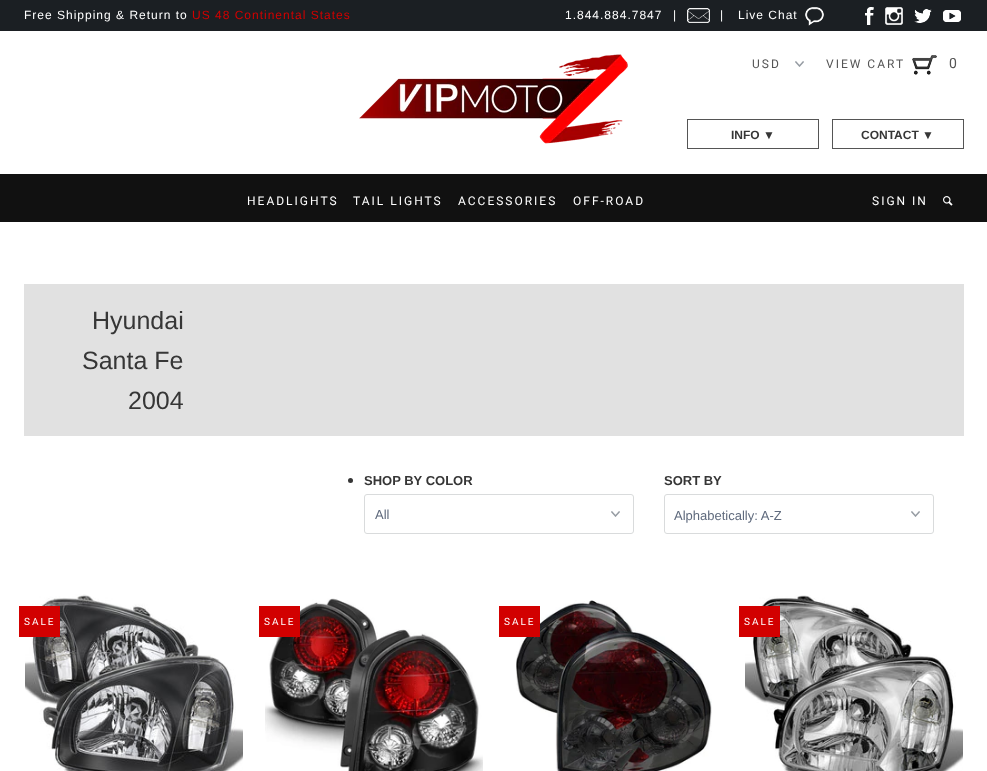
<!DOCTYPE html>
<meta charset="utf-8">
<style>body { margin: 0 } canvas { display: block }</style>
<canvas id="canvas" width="987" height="771"></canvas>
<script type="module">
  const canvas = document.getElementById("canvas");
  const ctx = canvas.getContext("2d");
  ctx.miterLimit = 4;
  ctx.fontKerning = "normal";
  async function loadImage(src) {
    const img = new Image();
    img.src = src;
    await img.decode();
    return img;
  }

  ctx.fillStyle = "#ffffff";
  ctx.fillRect(0, 0, 987, 771);
  ctx.fillStyle = "#1b1f23";
  ctx.fillRect(0, 0, 987, 31);
  ctx.letterSpacing = "1px";
  ctx.font = "12px Liberation Sans";
  ctx.fillStyle = "#ffffff";
  ctx.fillText("Free Shipping & Return to", 24, 19);
  ctx.fillStyle = "#d20000";
  ctx.fillText("US 48 Continental States", 192, 19);
  ctx.fillStyle = "#ffffff";
  ctx.fillText("1.844.884.7847", 565, 19);
  ctx.fillText("|", 673, 19);
  ctx.drawImage(await loadImage("img1.png"), 687, 8, 23, 15);
  ctx.fillText("|", 720, 19);
  ctx.fillText("Live Chat", 738, 19);
  ctx.drawImage(await loadImage("img2.png"), 805, 7, 19, 19);
  ctx.drawImage(await loadImage("img3.png"), 865, 7, 9, 18);
  ctx.drawImage(await loadImage("img4.png"), 885, 7, 18, 18);
  ctx.drawImage(await loadImage("img5.png"), 914, 9, 18, 14);
  ctx.drawImage(await loadImage("img6.png"), 943, 10, 18, 12);
  ctx.drawImage(await loadImage("img7.png"), 359, 54, 269, 90);
  ctx.drawImage(await loadImage("img8.png"), 795, 61, 9, 6);
  ctx.letterSpacing = "2px";
  ctx.font = "12px Roboto";
  ctx.fillStyle = "#555555";
  ctx.fillText("USD", 752, 68);
  ctx.fillText("VIEW CART", 826, 68);
  ctx.drawImage(await loadImage("img9.png"), 912, 55, 25, 20);
  ctx.font = "14px Roboto";
  ctx.fillText("0", 949, 68);
  ctx.strokeStyle = "#555555";
  ctx.strokeRect(687.5, 119.5, 131, 29);
  ctx.letterSpacing = "0px";
  ctx.font = "bold 12px Liberation Sans";
  ctx.fillStyle = "#363636";
  ctx.fillText("INFO ▼", 731, 139);
  ctx.strokeRect(832.5, 119.5, 131, 29);
  ctx.fillText("CONTACT ▼", 861, 139);
  ctx.fillStyle = "#111111";
  ctx.fillRect(0, 174, 987, 48);
  ctx.letterSpacing = "2px";
  ctx.font = "12px Roboto";
  ctx.fillStyle = "#ffffff";
  ctx.fillText("HEADLIGHTS", 247, 205);
  ctx.fillText("TAIL LIGHTS", 353, 205);
  ctx.fillText("ACCESSORIES", 458, 205);
  ctx.fillText("OFF-ROAD", 573, 205);
  ctx.fillText("SIGN IN", 872, 205);
  ctx.drawImage(await loadImage("img10.png"), 943, 196, 10, 10);
  ctx.fillStyle = "#e1e1e1";
  ctx.fillRect(24, 284, 940, 152);
  ctx.letterSpacing = "0px";
  ctx.font = "25px Liberation Sans";
  ctx.fillStyle = "#363636";
  ctx.fillText("Hyundai", 92, 329);
  ctx.fillText("Santa Fe", 82, 369);
  ctx.fillText("2004", 128, 409);
  ctx.beginPath();
  ctx.arc(350.5, 480.5, 2.5, 0, Math.PI * 2);
  ctx.fill();
  ctx.font = "bold 13px Liberation Sans";
  ctx.fillText("SHOP BY COLOR", 364, 485);
  ctx.drawImage(await loadImage("img8.png"), 611, 511, 9, 6);
  ctx.beginPath();
  ctx.roundRect(364.5, 494.5, 269, 39, 2.5);
  ctx.strokeStyle = "#d9dbdc";
  ctx.stroke();
  ctx.font = "13px Liberation Sans";
  ctx.fillStyle = "#5f6a7d";
  ctx.fillText("All", 375, 519);
  ctx.font = "bold 13px Liberation Sans";
  ctx.fillStyle = "#363636";
  ctx.fillText("SORT BY", 664, 485);
  ctx.drawImage(await loadImage("img8.png"), 911, 511, 9, 6);
  ctx.beginPath();
  ctx.roundRect(664.5, 494.5, 269, 39, 2.5);
  ctx.stroke();
  ctx.font = "13px Liberation Sans";
  ctx.fillStyle = "#5f6a7d";
  ctx.fillText("Alphabetically: A-Z", 674, 520);
  ctx.drawImage(await loadImage("img11.png"), 25, 594, 218, 177);
  ctx.fillStyle = "#d20000";
  ctx.fillRect(19, 606, 41, 31);
  ctx.letterSpacing = "2px";
  ctx.font = "10px Roboto";
  ctx.fillStyle = "#ffffff";
  ctx.fillText("SALE", 24, 625);
  ctx.drawImage(await loadImage("img12.png"), 265, 598, 218, 173);
  ctx.fillStyle = "#d20000";
  ctx.fillRect(259, 606, 41, 31);
  ctx.fillStyle = "#ffffff";
  ctx.fillText("SALE", 264, 625);
  ctx.drawImage(await loadImage("img13.png"), 516, 600, 196, 171);
  ctx.fillStyle = "#d20000";
  ctx.fillRect(499, 606, 41, 31);
  ctx.fillStyle = "#ffffff";
  ctx.fillText("SALE", 504, 625);
  ctx.drawImage(await loadImage("img14.png"), 745, 595, 218, 176);
  ctx.fillStyle = "#d20000";
  ctx.fillRect(739, 606, 41, 31);
  ctx.fillStyle = "#ffffff";
  ctx.fillText("SALE", 744, 625);
</script>
